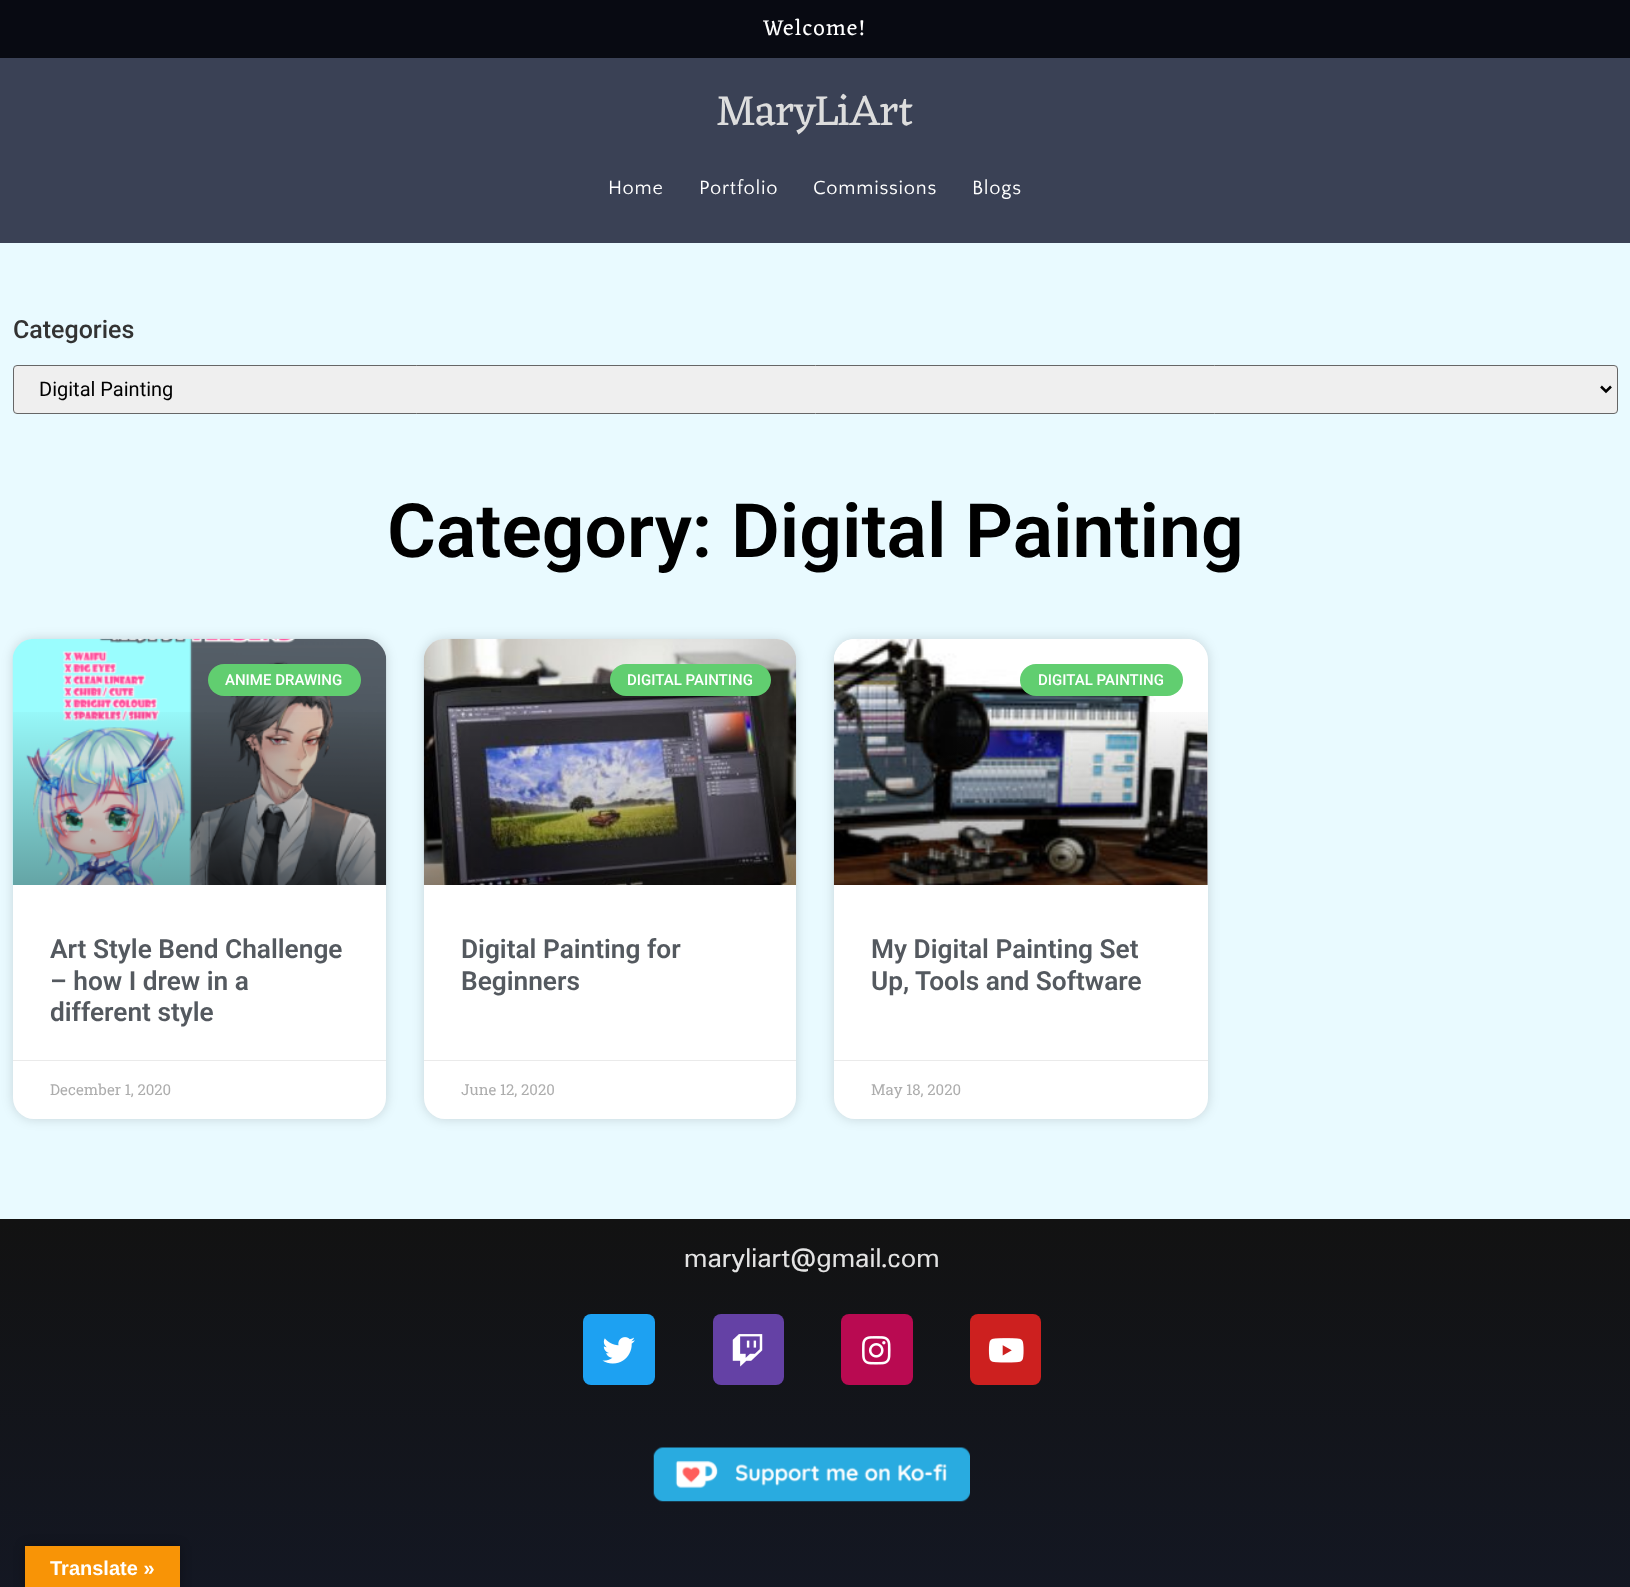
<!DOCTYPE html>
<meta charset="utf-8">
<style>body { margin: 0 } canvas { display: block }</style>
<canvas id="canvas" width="1630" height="1587"></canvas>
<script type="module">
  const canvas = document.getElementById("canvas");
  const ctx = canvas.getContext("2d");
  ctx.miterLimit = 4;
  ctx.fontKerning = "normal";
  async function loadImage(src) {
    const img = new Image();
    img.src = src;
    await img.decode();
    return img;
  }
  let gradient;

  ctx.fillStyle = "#e9faff";
  ctx.fillRect(0, 0, 1630, 1587);
  ctx.fillStyle = "#080a12";
  ctx.fillRect(0, 0, 1630, 58);
  ctx.letterSpacing = "1.5px";
  ctx.font = "22.5px Eczar";
  ctx.fillStyle = "#ffffff";
  ctx.fillText("Welcome!", 763, 35);
  ctx.fillStyle = "#3a4155";
  ctx.fillRect(0, 58, 1630, 185);
  ctx.letterSpacing = "0px";
  ctx.font = "44px Eczar";
  ctx.fillStyle = "#dddddd";
  ctx.fillText("MaryLiArt", 716, 125);
  ctx.letterSpacing = "0.75px";
  ctx.font = "20px Quattrocento Sans";
  ctx.fillStyle = "#ffffff";
  ctx.fillText("Home", 608, 194);
  ctx.fillText("Portfolio", 699, 194);
  ctx.fillText("Commissions", 813, 194);
  ctx.fillText("Blogs", 972, 194);
  ctx.letterSpacing = "0px";
  ctx.font = "500 25px Roboto";
  ctx.fillStyle = "#333333";
  ctx.fillText("Categories", 13, 338);
  ctx.fillStyle = "#efefef";
  ctx.beginPath();
  ctx.roundRect(13.5, 365.5, 1604, 48, 3.5);
  ctx.fill();
  ctx.strokeStyle = "#666666";
  ctx.stroke();
  ctx.beginPath();
  ctx.moveTo(1601, 386.5);
  ctx.lineTo(1606, 391.5);
  ctx.lineTo(1611, 386.5);
  ctx.strokeStyle = "#000000";
  ctx.lineWidth = 2.5;
  ctx.stroke();
  ctx.font = "20px Roboto";
  ctx.fillStyle = "#000000";
  ctx.fillText("Digital Painting", 39, 396);
  ctx.font = "600 75px Roboto";
  ctx.fillText("Category: Digital Painting", 387, 557);
  ctx.fillStyle = "rgba(0, 0, 0, 0.15)";
  ctx.filter = "blur(6px)";
  ctx.beginPath();
  ctx.roundRect(13, 639, 373, 480, 21);
  ctx.fill();
  ctx.filter = "none";
  ctx.fillStyle = "#ffffff";
  ctx.beginPath();
  ctx.roundRect(13, 639, 373, 480, 21);
  ctx.fill();
  ctx.drawImage(await loadImage("img1.png"), 12, 638, 375, 247);
  gradient = ctx.createLinearGradient(199, 885, 199, 639);
  gradient.addColorStop(0, "rgba(0, 0, 0, 0.35)");
  gradient.addColorStop(0.75, "rgba(0, 0, 0, 0)");
  ctx.fillStyle = gradient;
  ctx.fillRect(13, 712, 373, 173);
  ctx.fillStyle = "#61ce70";
  ctx.beginPath();
  ctx.roundRect(208, 664, 153, 32, 16);
  ctx.fill();
  ctx.font = "500 15px Roboto";
  ctx.fillStyle = "#ffffff";
  ctx.fillText("ANIME DRAWING", 225, 685);
  ctx.font = "600 26.25px Roboto";
  ctx.fillStyle = "#54595f";
  ctx.fillText("Art Style Bend Challenge", 50, 958);
  ctx.fillText("– how I drew in a", 50, 990);
  ctx.fillText("different style", 50, 1021);
  ctx.fillStyle = "#eaeaea";
  ctx.fillRect(13, 1060, 373, 1);
  ctx.font = "15px Roboto Slab";
  ctx.fillStyle = "#adadad";
  ctx.fillText("December 1, 2020", 50, 1095);
  ctx.fillStyle = "rgba(0, 0, 0, 0.15)";
  ctx.filter = "blur(6px)";
  ctx.beginPath();
  ctx.roundRect(424, 639, 372, 480, 21);
  ctx.fill();
  ctx.filter = "none";
  ctx.fillStyle = "#ffffff";
  ctx.beginPath();
  ctx.roundRect(424, 639, 372, 480, 21);
  ctx.fill();
  ctx.drawImage(await loadImage("img2.png"), 423, 638, 374, 247);
  gradient = ctx.createLinearGradient(610, 885, 610, 639);
  gradient.addColorStop(0, "rgba(0, 0, 0, 0.35)");
  gradient.addColorStop(0.75, "rgba(0, 0, 0, 0)");
  ctx.fillStyle = gradient;
  ctx.fillRect(424, 712, 372, 173);
  ctx.fillStyle = "#61ce70";
  ctx.beginPath();
  ctx.roundRect(610, 664, 161, 32, 16);
  ctx.fill();
  ctx.font = "500 15px Roboto";
  ctx.fillStyle = "#ffffff";
  ctx.fillText("DIGITAL PAINTING", 627, 685);
  ctx.font = "600 26.25px Roboto";
  ctx.fillStyle = "#54595f";
  ctx.fillText("Digital Painting for", 461, 958);
  ctx.fillText("Beginners", 461, 990);
  ctx.fillStyle = "#eaeaea";
  ctx.fillRect(424, 1060, 372, 1);
  ctx.font = "15px Roboto Slab";
  ctx.fillStyle = "#adadad";
  ctx.fillText("June 12, 2020", 461, 1095);
  ctx.fillStyle = "rgba(0, 0, 0, 0.15)";
  ctx.filter = "blur(6px)";
  ctx.beginPath();
  ctx.roundRect(834, 639, 374, 480, 21);
  ctx.fill();
  ctx.filter = "none";
  ctx.fillStyle = "#ffffff";
  ctx.beginPath();
  ctx.roundRect(834, 639, 374, 480, 21);
  ctx.fill();
  ctx.drawImage(await loadImage("img3.png"), 833, 638, 375, 247);
  gradient = ctx.createLinearGradient(1021, 885, 1021, 639);
  gradient.addColorStop(0, "rgba(0, 0, 0, 0.35)");
  gradient.addColorStop(0.75, "rgba(0, 0, 0, 0)");
  ctx.fillStyle = gradient;
  ctx.fillRect(834, 712, 374, 173);
  ctx.fillStyle = "#61ce70";
  ctx.beginPath();
  ctx.roundRect(1020, 664, 163, 32, 16);
  ctx.fill();
  ctx.font = "500 15px Roboto";
  ctx.fillStyle = "#ffffff";
  ctx.fillText("DIGITAL PAINTING", 1038, 685);
  ctx.font = "600 26.25px Roboto";
  ctx.fillStyle = "#54595f";
  ctx.fillText("My Digital Painting Set", 871, 958);
  ctx.fillText("Up, Tools and Software", 871, 990);
  ctx.fillStyle = "#eaeaea";
  ctx.fillRect(834, 1060, 374, 1);
  ctx.font = "15px Roboto Slab";
  ctx.fillStyle = "#adadad";
  ctx.fillText("May 18, 2020", 871, 1095);
  gradient = ctx.createLinearGradient(815, 1219, 815, 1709);
  gradient.addColorStop(0, "#121212");
  gradient.addColorStop(1, "#141928");
  ctx.fillStyle = gradient;
  ctx.fillRect(0, 1219, 1630, 368);
  ctx.font = "30px Padauk";
  ctx.fillStyle = "#e3e3e3";
  ctx.fillText("maryliart@gmail.com", 684, 1267);
  ctx.fillStyle = "#1da1f2";
  ctx.beginPath();
  ctx.roundRect(583, 1314, 72, 71, 8);
  ctx.fill();
  ctx.drawImage(await loadImage("img4.png"), 602, 1337, 33, 27);
  ctx.fillStyle = "#6441a5";
  ctx.beginPath();
  ctx.roundRect(713, 1314, 71, 71, 8);
  ctx.fill();
  ctx.drawImage(await loadImage("img5.png"), 732, 1334, 31, 33);
  ctx.fillStyle = "#b90a51";
  ctx.beginPath();
  ctx.roundRect(841, 1314, 72, 71, 8);
  ctx.fill();
  ctx.drawImage(await loadImage("img6.png"), 862, 1336, 29, 29);
  ctx.fillStyle = "#cd201f";
  ctx.beginPath();
  ctx.roundRect(970, 1314, 71, 71, 8);
  ctx.fill();
  ctx.drawImage(await loadImage("img7.png"), 988, 1338, 36, 25);
  ctx.drawImage(await loadImage("img8.png"), 653, 1447, 317, 55);
  ctx.fillStyle = "rgba(0, 0, 0, 0.3)";
  ctx.filter = "blur(5.5px)";
  ctx.beginPath();
  ctx.rect(25, 1546, 155, 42);
  ctx.fill();
  ctx.filter = "none";
  ctx.fillStyle = "#f89406";
  ctx.fillRect(25, 1546, 155, 41);
  ctx.font = "bold 20px Liberation Sans";
  ctx.fillStyle = "#ffffff";
  ctx.fillText("Translate »", 50, 1575);
</script>
